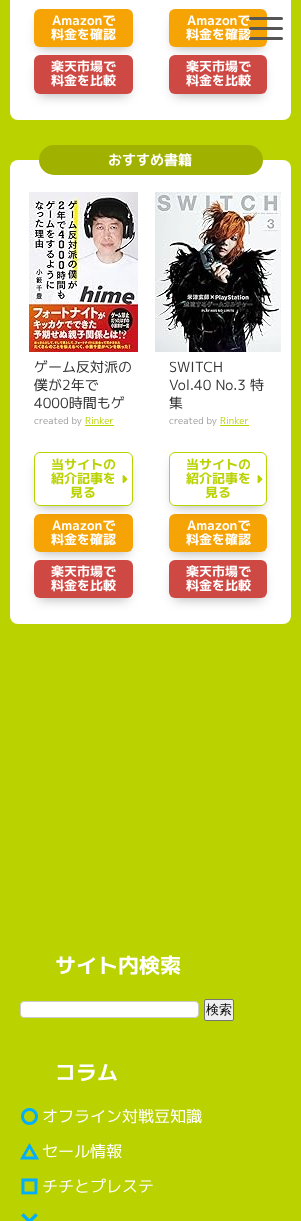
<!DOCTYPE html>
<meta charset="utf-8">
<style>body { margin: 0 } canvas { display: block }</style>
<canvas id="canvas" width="301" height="1221"></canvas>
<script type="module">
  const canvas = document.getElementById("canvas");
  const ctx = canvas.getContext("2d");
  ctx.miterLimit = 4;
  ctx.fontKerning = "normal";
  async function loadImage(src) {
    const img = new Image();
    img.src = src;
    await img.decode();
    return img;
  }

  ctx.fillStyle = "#b9d200";
  ctx.fillRect(0, 0, 301, 1221);
  ctx.fillStyle = "#ffffff";
  ctx.beginPath();
  ctx.roundRect(10, -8, 281, 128, 8);
  ctx.fill();
  ctx.fillStyle = "rgba(0, 0, 0, 0.3)";
  ctx.filter = "blur(6px)";
  ctx.beginPath();
  ctx.roundRect(39, 20, 89, 28, 1);
  ctx.fill();
  ctx.filter = "none";
  ctx.fillStyle = "#f6a306";
  ctx.beginPath();
  ctx.roundRect(34, 9, 99, 38, 6);
  ctx.fill();
  ctx.font = "bold 13px 'M PLUS 1p'";
  ctx.fillStyle = "#ffffff";
  ctx.fillText("Amazonで", 52, 25);
  ctx.fillText("料金を確認", 51, 39);
  ctx.fillStyle = "rgba(0, 0, 0, 0.3)";
  ctx.filter = "blur(6px)";
  ctx.beginPath();
  ctx.roundRect(39, 66, 89, 29, 1);
  ctx.fill();
  ctx.filter = "none";
  ctx.fillStyle = "#cf4944";
  ctx.beginPath();
  ctx.roundRect(34, 55, 99, 39, 6);
  ctx.fill();
  ctx.fillStyle = "#ffffff";
  ctx.fillText("楽天市場で", 51, 71);
  ctx.fillText("料金を比較", 51, 85);
  ctx.fillStyle = "rgba(0, 0, 0, 0.3)";
  ctx.filter = "blur(6px)";
  ctx.beginPath();
  ctx.roundRect(174, 20, 88, 28, 1);
  ctx.fill();
  ctx.filter = "none";
  ctx.fillStyle = "#f6a306";
  ctx.beginPath();
  ctx.roundRect(169, 9, 98, 38, 6);
  ctx.fill();
  ctx.fillStyle = "#ffffff";
  ctx.fillText("Amazonで", 187, 25);
  ctx.fillText("料金を確認", 186, 39);
  ctx.fillStyle = "rgba(0, 0, 0, 0.3)";
  ctx.filter = "blur(6px)";
  ctx.beginPath();
  ctx.roundRect(174, 66, 88, 29, 1);
  ctx.fill();
  ctx.filter = "none";
  ctx.fillStyle = "#cf4944";
  ctx.beginPath();
  ctx.roundRect(169, 55, 98, 39, 6);
  ctx.fill();
  ctx.fillStyle = "#ffffff";
  ctx.fillText("楽天市場で", 186, 71);
  ctx.fillText("料金を比較", 186, 85);
  ctx.beginPath();
  ctx.roundRect(10, 160, 281, 464, 8);
  ctx.fill();
  ctx.fillStyle = "#a1b100";
  ctx.beginPath();
  ctx.roundRect(39, 145, 224, 30, 15);
  ctx.fill();
  ctx.font = "bold 14px 'M PLUS 1p'";
  ctx.fillStyle = "#ffffff";
  ctx.fillText("おすすめ書籍", 108, 165);
  ctx.drawImage(await loadImage("img1.png"), 29, 192, 109, 160);
  ctx.font = "14px 'M PLUS 1p'";
  ctx.fillStyle = "#333333";
  ctx.fillText("ゲーム反対派の", 34, 372);
  ctx.fillText("僕が2年で", 34, 390);
  ctx.fillText("4000時間もゲ", 34, 408);
  ctx.font = "9.5px 'M PLUS 1p'";
  ctx.fillStyle = "#999999";
  ctx.fillText("created by", 34, 424);
  ctx.fillStyle = "#b9d200";
  ctx.fillText("Rinker", 85, 424);
  ctx.fillRect(85, 425, 29, 1);
  ctx.fillStyle = "rgba(0, 0, 0, 0.3)";
  ctx.filter = "blur(6px)";
  ctx.beginPath();
  ctx.roundRect(39, 525, 89, 28, 1);
  ctx.fill();
  ctx.filter = "none";
  ctx.fillStyle = "#f6a306";
  ctx.beginPath();
  ctx.roundRect(34, 514, 99, 38, 6);
  ctx.fill();
  ctx.save();
  ctx.beginPath();
  ctx.moveTo(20, 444);
  ctx.lineTo(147, 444);
  ctx.lineTo(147, 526);
  ctx.lineTo(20, 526);
  ctx.closePath();
  ctx.moveTo(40, 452);
  ctx.lineTo(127, 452);
  ctx.bezierCurveTo(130.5, 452, 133, 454.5, 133, 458);
  ctx.lineTo(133, 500);
  ctx.bezierCurveTo(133, 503.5, 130.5, 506, 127, 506);
  ctx.lineTo(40, 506);
  ctx.bezierCurveTo(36.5, 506, 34, 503.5, 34, 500);
  ctx.lineTo(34, 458);
  ctx.bezierCurveTo(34, 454.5, 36.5, 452, 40, 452);
  ctx.closePath();
  ctx.clip("evenodd");
  ctx.fillStyle = "rgba(0, 0, 0, 0.3)";
  ctx.filter = "blur(6px)";
  ctx.beginPath();
  ctx.roundRect(39, 463, 89, 44, 1);
  ctx.fill();
  ctx.filter = "none";
  ctx.restore();
  ctx.beginPath();
  ctx.roundRect(34.5, 452.5, 98, 53, 5.5);
  ctx.strokeStyle = "#b9d200";
  ctx.stroke();
  ctx.font = "bold 13px 'M PLUS 1p'";
  ctx.fillStyle = "#b9d200";
  ctx.fillText("当サイトの", 51, 469);
  ctx.fillText("紹介記事を", 51, 483);
  ctx.drawImage(await loadImage("img2.png"), 122, 475, 6, 9);
  ctx.fillText("見る", 70, 497);
  ctx.fillStyle = "#ffffff";
  ctx.fillText("Amazonで", 52, 530);
  ctx.fillText("料金を確認", 51, 544);
  ctx.fillStyle = "rgba(0, 0, 0, 0.3)";
  ctx.filter = "blur(6px)";
  ctx.beginPath();
  ctx.roundRect(39, 571, 89, 28, 1);
  ctx.fill();
  ctx.filter = "none";
  ctx.fillStyle = "#cf4944";
  ctx.beginPath();
  ctx.roundRect(34, 560, 99, 38, 6);
  ctx.fill();
  ctx.fillStyle = "#ffffff";
  ctx.fillText("楽天市場で", 51, 576);
  ctx.fillText("料金を比較", 51, 590);
  ctx.drawImage(await loadImage("img3.png"), 155, 192, 126, 160);
  ctx.font = "14px 'M PLUS 1p'";
  ctx.fillStyle = "#333333";
  ctx.fillText("SWITCH", 169, 372);
  ctx.fillText("Vol.40 No.3 特", 169, 390);
  ctx.fillText("集", 169, 408);
  ctx.font = "9.5px 'M PLUS 1p'";
  ctx.fillStyle = "#999999";
  ctx.fillText("created by", 169, 424);
  ctx.fillStyle = "#b9d200";
  ctx.fillText("Rinker", 220, 424);
  ctx.fillRect(220, 425, 29, 1);
  ctx.fillStyle = "rgba(0, 0, 0, 0.3)";
  ctx.filter = "blur(6px)";
  ctx.beginPath();
  ctx.roundRect(174, 525, 88, 28, 1);
  ctx.fill();
  ctx.filter = "none";
  ctx.fillStyle = "#f6a306";
  ctx.beginPath();
  ctx.roundRect(169, 514, 98, 38, 6);
  ctx.fill();
  ctx.save();
  ctx.beginPath();
  ctx.moveTo(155, 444);
  ctx.lineTo(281, 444);
  ctx.lineTo(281, 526);
  ctx.lineTo(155, 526);
  ctx.closePath();
  ctx.moveTo(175, 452);
  ctx.lineTo(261, 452);
  ctx.bezierCurveTo(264.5, 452, 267, 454.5, 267, 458);
  ctx.lineTo(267, 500);
  ctx.bezierCurveTo(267, 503.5, 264.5, 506, 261, 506);
  ctx.lineTo(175, 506);
  ctx.bezierCurveTo(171.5, 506, 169, 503.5, 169, 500);
  ctx.lineTo(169, 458);
  ctx.bezierCurveTo(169, 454.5, 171.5, 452, 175, 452);
  ctx.closePath();
  ctx.clip("evenodd");
  ctx.fillStyle = "rgba(0, 0, 0, 0.3)";
  ctx.filter = "blur(6px)";
  ctx.beginPath();
  ctx.roundRect(174, 463, 88, 44, 1);
  ctx.fill();
  ctx.filter = "none";
  ctx.restore();
  ctx.beginPath();
  ctx.roundRect(169.5, 452.5, 97, 53, 5.5);
  ctx.stroke();
  ctx.font = "bold 13px 'M PLUS 1p'";
  ctx.fillStyle = "#b9d200";
  ctx.fillText("当サイトの", 186, 469);
  ctx.fillText("紹介記事を", 186, 483);
  ctx.drawImage(await loadImage("img2.png"), 257, 475, 6, 9);
  ctx.fillText("見る", 205, 497);
  ctx.fillStyle = "#ffffff";
  ctx.fillText("Amazonで", 187, 530);
  ctx.fillText("料金を確認", 186, 544);
  ctx.fillStyle = "rgba(0, 0, 0, 0.3)";
  ctx.filter = "blur(6px)";
  ctx.beginPath();
  ctx.roundRect(174, 571, 88, 28, 1);
  ctx.fill();
  ctx.filter = "none";
  ctx.fillStyle = "#cf4944";
  ctx.beginPath();
  ctx.roundRect(169, 560, 98, 38, 6);
  ctx.fill();
  ctx.fillStyle = "#ffffff";
  ctx.fillText("楽天市場で", 186, 576);
  ctx.fillText("料金を比較", 186, 590);
  ctx.font = "bold 21px 'M PLUS 1p'";
  ctx.fillText("サイト内検索", 55, 973);
  ctx.beginPath();
  ctx.roundRect(20.5, 1001.5, 178, 16, 3.5);
  ctx.fill();
  ctx.strokeStyle = "#cccccc";
  ctx.stroke();
  ctx.fillStyle = "#efefef";
  ctx.beginPath();
  ctx.roundRect(204.5, 999.5, 29, 21, 1.5);
  ctx.fill();
  ctx.strokeStyle = "#767676";
  ctx.stroke();
  ctx.font = "500 13px WenQuanYi Zen Hei";
  ctx.fillStyle = "#000000";
  ctx.fillText("検索", 206, 1014);
  ctx.font = "bold 21px 'M PLUS 1p'";
  ctx.fillStyle = "#ffffff";
  ctx.fillText("コラム", 55, 1080);
  ctx.drawImage(await loadImage("img4.png"), 21, 1108, 17, 17);
  ctx.font = "16px 'M PLUS 1p'";
  ctx.fillText("オフライン対戦豆知識", 42, 1122);
  ctx.fillStyle = "#00adff";
  ctx.beginPath();
  ctx.moveTo(29.5, 1143);
  ctx.lineTo(20, 1159.5);
  ctx.lineTo(39, 1159.5);
  ctx.closePath();
  ctx.moveTo(29.5, 1148.5);
  ctx.lineTo(34, 1156.5);
  ctx.lineTo(25, 1156.5);
  ctx.closePath();
  ctx.fill();
  ctx.fillStyle = "#ffffff";
  ctx.fillText("セール情報", 42, 1157);
  ctx.drawImage(await loadImage("img5.png"), 21, 1178, 17, 17);
  ctx.fillText("チチとプレステ", 42, 1192);
  ctx.drawImage(await loadImage("img6.png"), 21, 1213, 17, 8);
  ctx.fillStyle = "#555555";
  ctx.beginPath();
  ctx.roundRect(249, 27, 34, 3, 1.5);
  ctx.fill();
  ctx.beginPath();
  ctx.roundRect(249, 17, 34, 3, 1.5);
  ctx.fill();
  ctx.beginPath();
  ctx.roundRect(249, 37, 34, 3, 1.5);
  ctx.fill();
</script>
